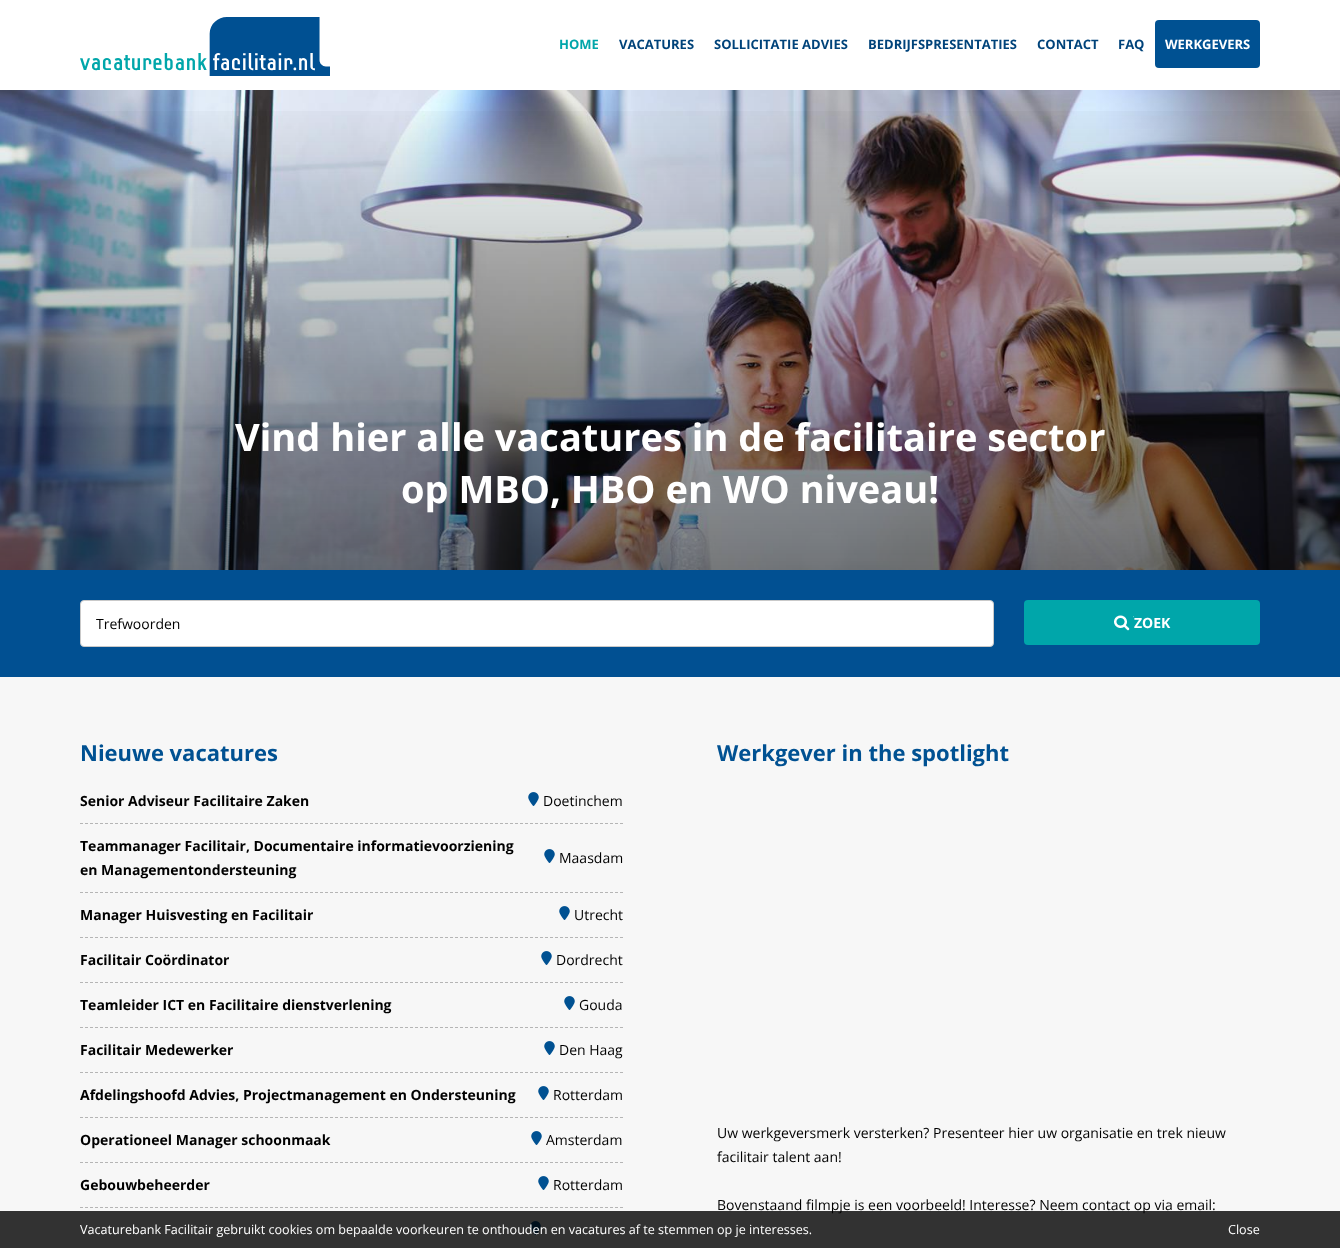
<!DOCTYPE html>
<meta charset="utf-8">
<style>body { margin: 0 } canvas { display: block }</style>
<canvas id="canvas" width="1340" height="1248"></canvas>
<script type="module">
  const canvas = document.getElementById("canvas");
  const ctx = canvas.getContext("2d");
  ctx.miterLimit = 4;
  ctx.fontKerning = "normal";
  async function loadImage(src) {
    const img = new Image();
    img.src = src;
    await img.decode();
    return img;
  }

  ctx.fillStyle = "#ffffff";
  ctx.fillRect(0, 0, 1340, 1248);
  ctx.drawImage(await loadImage("img1.png"), 80, 17, 250, 59);
  ctx.font = "bold 13px Open Sans";
  ctx.fillStyle = "#00a6aa";
  ctx.fillText("HOME", 559, 49);
  ctx.fillStyle = "#00437a";
  ctx.fillText("VACATURES", 619, 49);
  ctx.fillText("SOLLICITATIE ADVIES", 714, 49);
  ctx.fillText("BEDRIJFSPRESENTATIES", 868, 49);
  ctx.fillText("CONTACT", 1037, 49);
  ctx.fillText("FAQ", 1118, 49);
  ctx.fillStyle = "#005192";
  ctx.beginPath();
  ctx.roundRect(1155, 20, 105, 48, 4);
  ctx.fill();
  ctx.fillStyle = "#ffffff";
  ctx.fillText("WERKGEVERS", 1165, 49);
  ctx.drawImage(await loadImage("img2.png"), 0, 90, 1340, 480);
  ctx.drawImage(await loadImage("img3.png"), 0, 111, 1340, 459);
  ctx.font = "bold 38px Open Sans";
  ctx.fillText("Vind hier alle vacatures in de facilitaire sector", 235, 451);
  ctx.fillText("op MBO, HBO en WO niveau!", 401, 503);
  ctx.fillStyle = "#015092";
  ctx.fillRect(0, 570, 1340, 107);
  ctx.fillStyle = "#ffffff";
  ctx.beginPath();
  ctx.roundRect(80.5, 600.5, 913, 46, 3.5);
  ctx.fill();
  ctx.strokeStyle = "#c9c9c9";
  ctx.stroke();
  ctx.font = "14px Open Sans";
  ctx.fillStyle = "#000000";
  ctx.fillText("Trefwoorden", 96, 629);
  ctx.fillStyle = "#00a6aa";
  ctx.beginPath();
  ctx.roundRect(1024, 600, 236, 45, 4);
  ctx.fill();
  ctx.drawImage(await loadImage("img4.png"), 1114, 615, 20, 16);
  ctx.font = "bold 14px Open Sans";
  ctx.fillStyle = "#ffffff";
  ctx.fillText("ZOEK", 1134, 628);
  ctx.fillStyle = "#f7f7f7";
  ctx.fillRect(0, 677, 1340, 571);
  ctx.font = "bold 22px Open Sans";
  ctx.fillStyle = "#005192";
  ctx.fillText("Nieuwe vacatures", 80, 761);
  ctx.beginPath();
  ctx.moveTo(80, 823.5);
  ctx.lineTo(623, 823.5);
  ctx.strokeStyle = "#b5b5b5";
  ctx.setLineDash([3, 2]);
  ctx.stroke();
  ctx.font = "bold 14px Open Sans";
  ctx.fillStyle = "#000000";
  ctx.fillText("Senior Adviseur Facilitaire Zaken", 80, 806);
  ctx.drawImage(await loadImage("img5.png"), 528, 792, 11, 14);
  ctx.font = "14px Open Sans";
  ctx.fillText("Doetinchem", 543, 806);
  ctx.beginPath();
  ctx.moveTo(80, 892.5);
  ctx.lineTo(623, 892.5);
  ctx.stroke();
  ctx.font = "bold 14px Open Sans";
  ctx.fillText("Teammanager Facilitair, Documentaire informatievoorziening", 80, 851);
  ctx.fillText("en Managementondersteuning", 80, 875);
  ctx.drawImage(await loadImage("img5.png"), 544, 849, 11, 14);
  ctx.font = "14px Open Sans";
  ctx.fillText("Maasdam", 559, 863);
  ctx.beginPath();
  ctx.moveTo(80, 937.5);
  ctx.lineTo(623, 937.5);
  ctx.stroke();
  ctx.font = "bold 14px Open Sans";
  ctx.fillText("Manager Huisvesting en Facilitair", 80, 920);
  ctx.drawImage(await loadImage("img5.png"), 559, 906, 11, 14);
  ctx.font = "14px Open Sans";
  ctx.fillText("Utrecht", 574, 920);
  ctx.beginPath();
  ctx.moveTo(80, 982.5);
  ctx.lineTo(623, 982.5);
  ctx.stroke();
  ctx.font = "bold 14px Open Sans";
  ctx.fillText("Facilitair Coördinator", 80, 965);
  ctx.drawImage(await loadImage("img5.png"), 541, 951, 11, 14);
  ctx.font = "14px Open Sans";
  ctx.fillText("Dordrecht", 556, 965);
  ctx.beginPath();
  ctx.moveTo(80, 1027.5);
  ctx.lineTo(623, 1027.5);
  ctx.stroke();
  ctx.font = "bold 14px Open Sans";
  ctx.fillText("Teamleider ICT en Facilitaire dienstverlening", 80, 1010);
  ctx.drawImage(await loadImage("img5.png"), 564, 996, 11, 14);
  ctx.font = "14px Open Sans";
  ctx.fillText("Gouda", 579, 1010);
  ctx.beginPath();
  ctx.moveTo(80, 1072.5);
  ctx.lineTo(623, 1072.5);
  ctx.stroke();
  ctx.font = "bold 14px Open Sans";
  ctx.fillText("Facilitair Medewerker", 80, 1055);
  ctx.drawImage(await loadImage("img5.png"), 544, 1041, 11, 14);
  ctx.font = "14px Open Sans";
  ctx.fillText("Den Haag", 559, 1055);
  ctx.beginPath();
  ctx.moveTo(80, 1117.5);
  ctx.lineTo(623, 1117.5);
  ctx.stroke();
  ctx.font = "bold 14px Open Sans";
  ctx.fillText("Afdelingshoofd Advies, Projectmanagement en Ondersteuning", 80, 1100);
  ctx.drawImage(await loadImage("img5.png"), 538, 1086, 11, 14);
  ctx.font = "14px Open Sans";
  ctx.fillText("Rotterdam", 553, 1100);
  ctx.beginPath();
  ctx.moveTo(80, 1162.5);
  ctx.lineTo(623, 1162.5);
  ctx.stroke();
  ctx.font = "bold 14px Open Sans";
  ctx.fillText("Operationeel Manager schoonmaak", 80, 1145);
  ctx.drawImage(await loadImage("img5.png"), 531, 1131, 11, 14);
  ctx.font = "14px Open Sans";
  ctx.fillText("Amsterdam", 546, 1145);
  ctx.beginPath();
  ctx.moveTo(80, 1207.5);
  ctx.lineTo(623, 1207.5);
  ctx.stroke();
  ctx.font = "bold 14px Open Sans";
  ctx.fillText("Gebouwbeheerder", 80, 1190);
  ctx.drawImage(await loadImage("img5.png"), 538, 1176, 11, 14);
  ctx.font = "14px Open Sans";
  ctx.fillText("Rotterdam", 553, 1190);
  ctx.drawImage(await loadImage("img5.png"), 530, 1221, 11, 14);
  ctx.font = "bold 22px Open Sans";
  ctx.fillStyle = "#005192";
  ctx.fillText("Werkgever in the spotlight", 717, 761);
  ctx.font = "14px Open Sans";
  ctx.fillStyle = "#000000";
  ctx.fillText("Uw werkgeversmerk versterken? Presenteer hier uw organisatie en trek nieuw", 717, 1138);
  ctx.fillText("facilitair talent aan!", 717, 1162);
  ctx.fillText("Bovenstaand filmpje is een voorbeeld! Interesse? Neem contact op via email:", 717, 1210);
  ctx.fillStyle = "rgba(0, 0, 0, 0.8)";
  ctx.fillRect(0, 1211, 1340, 37);
  ctx.font = "12.6px Open Sans";
  ctx.fillStyle = "#ffffff";
  ctx.fillText("Vacaturebank Facilitair gebruikt cookies om bepaalde voorkeuren te onthouden en vacatures af te stemmen op je interesses.", 80, 1234);
  ctx.fillText("Close", 1228, 1234);
</script>
